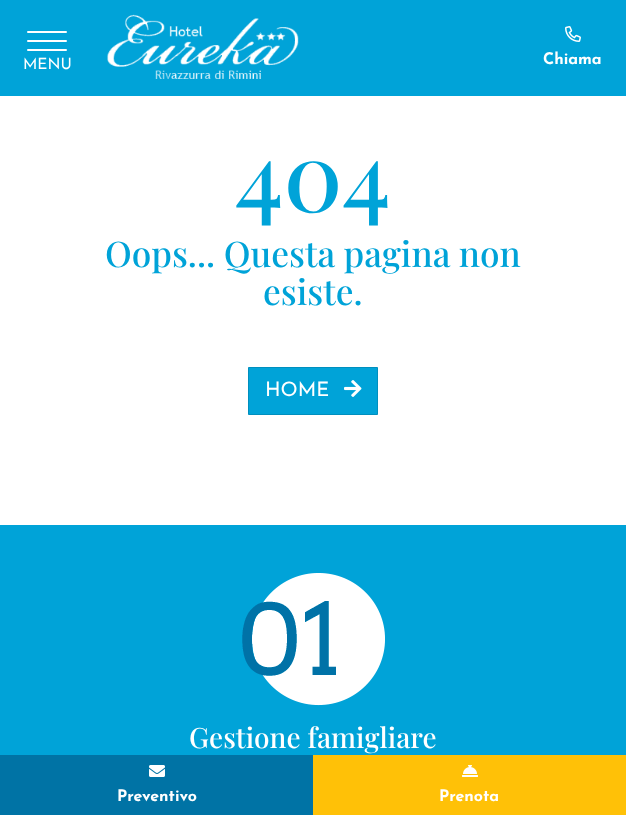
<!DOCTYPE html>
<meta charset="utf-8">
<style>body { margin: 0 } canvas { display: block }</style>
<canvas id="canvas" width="626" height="815"></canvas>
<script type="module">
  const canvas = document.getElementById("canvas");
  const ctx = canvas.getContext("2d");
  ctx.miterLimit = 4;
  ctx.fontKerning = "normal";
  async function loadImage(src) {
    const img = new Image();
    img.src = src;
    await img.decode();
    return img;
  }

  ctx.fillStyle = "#ffffff";
  ctx.fillRect(0, 0, 626, 815);
  ctx.fillStyle = "#00a3d8";
  ctx.fillRect(0, 0, 626, 96);
  ctx.fillStyle = "#ffffff";
  ctx.beginPath();
  ctx.roundRect(27, 31, 40, 2, 1);
  ctx.fill();
  ctx.beginPath();
  ctx.roundRect(27, 40, 40, 2, 1);
  ctx.fill();
  ctx.beginPath();
  ctx.roundRect(27, 49, 40, 2, 1);
  ctx.fill();
  ctx.font = "15.5px Josefin Sans";
  ctx.fillText("MENU", 23, 69);
  ctx.drawImage(await loadImage("img1.png"), 107, 14, 192, 65);
  ctx.drawImage(await loadImage("img2.png"), 565, 26, 16, 16);
  ctx.font = "bold 16px Josefin Sans";
  ctx.fillText("Chiama", 543, 64);
  ctx.font = "500 96px Playfair Display";
  ctx.fillStyle = "#00a3d8";
  ctx.fillText("404", 235, 212);
  ctx.font = "500 35.25px Playfair Display";
  ctx.fillText("Oops... Questa pagina non", 105, 267);
  ctx.fillText("esiste.", 263, 305);
  ctx.beginPath();
  ctx.rect(248.5, 367.5, 129, 47);
  ctx.fill();
  ctx.strokeStyle = "#008fbe";
  ctx.stroke();
  ctx.font = "20px Josefin Sans";
  ctx.fillStyle = "#ffffff";
  ctx.fillText("HOME", 265, 396);
  ctx.drawImage(await loadImage("img3.png"), 344, 380, 18, 17);
  ctx.fillStyle = "#00a3d8";
  ctx.fillRect(0, 525, 626, 230);
  ctx.drawImage(await loadImage("img4.png"), 242, 573, 143, 133);
  ctx.font = "500 28px Playfair Display";
  ctx.fillStyle = "#ffffff";
  ctx.fillText("Gestione famigliare", 189, 748);
  ctx.fillStyle = "#0073a5";
  ctx.fillRect(0, 755, 313, 60);
  ctx.drawImage(await loadImage("img5.png"), 149, 765, 16, 12);
  ctx.font = "bold 16px Josefin Sans";
  ctx.fillStyle = "#ffffff";
  ctx.fillText("Preventivo", 117, 801);
  ctx.fillStyle = "#ffc107";
  ctx.fillRect(313, 755, 313, 60);
  ctx.drawImage(await loadImage("img6.png"), 462, 765, 16, 12);
  ctx.fillStyle = "#ffffff";
  ctx.fillText("Prenota", 439, 801);
</script>
